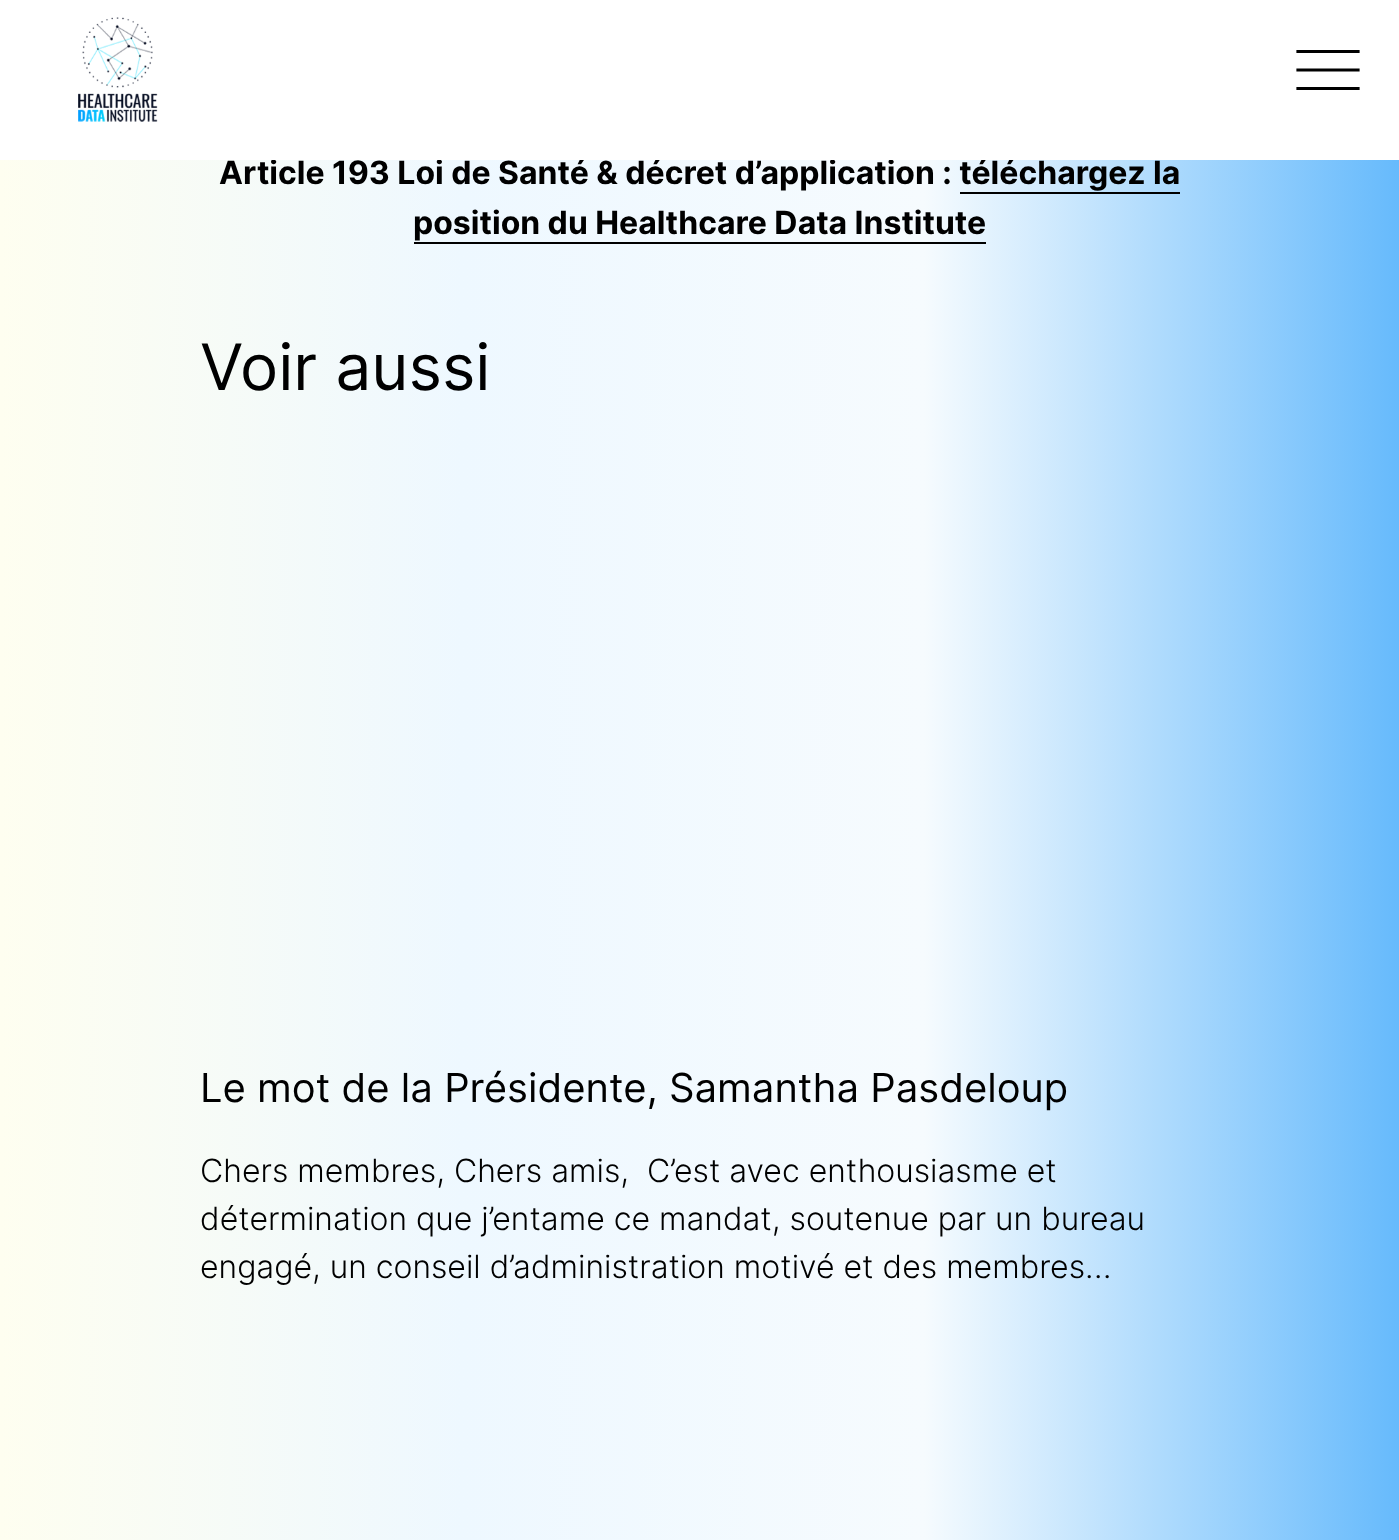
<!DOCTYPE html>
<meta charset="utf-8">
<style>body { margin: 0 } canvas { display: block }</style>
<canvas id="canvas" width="1399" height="1540"></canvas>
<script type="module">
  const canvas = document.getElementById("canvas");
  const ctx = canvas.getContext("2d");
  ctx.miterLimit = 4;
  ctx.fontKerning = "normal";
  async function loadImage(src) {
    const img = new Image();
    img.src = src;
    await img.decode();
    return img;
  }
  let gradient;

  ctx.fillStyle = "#ffffff";
  ctx.fillRect(0, 0, 1399, 1540);
  gradient = ctx.createLinearGradient(0, 1090, 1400, 1090);
  gradient.addColorStop(0, "#fefef0");
  gradient.addColorStop(0.33, "#eef8ff");
  gradient.addColorStop(0.66, "#f6fbfe");
  gradient.addColorStop(1, "#66bafc");
  ctx.fillStyle = gradient;
  ctx.fillRect(0, 160, 1399, 1380);
  ctx.font = "bold 32px Inter";
  ctx.fillStyle = "#000000";
  ctx.fillText("Article 193 Loi de Santé & décret d’application : téléchargez la", 219, 184);
  ctx.fillStyle = "#ffffff";
  ctx.fillRect(272, 159, 743, 1);
  ctx.drawImage(await loadImage("img1.png"), 78, 17, 80, 105);
  ctx.fillStyle = "#000000";
  ctx.beginPath();
  ctx.moveTo(1297, 50);
  ctx.lineTo(1297, 52);
  ctx.lineTo(1359, 52);
  ctx.lineTo(1359, 50);
  ctx.closePath();
  ctx.moveTo(1297, 69);
  ctx.lineTo(1297, 71);
  ctx.lineTo(1359, 71);
  ctx.lineTo(1359, 69);
  ctx.closePath();
  ctx.moveTo(1297, 88);
  ctx.lineTo(1297, 90);
  ctx.lineTo(1359, 90);
  ctx.lineTo(1359, 88);
  ctx.closePath();
  ctx.fill();
  ctx.save();
  ctx.beginPath();
  ctx.rect(1296, 50, 64, 40);
  ctx.clip();
  ctx.beginPath();
  ctx.moveTo(1297, 50);
  ctx.lineTo(1297, 52.5);
  ctx.lineTo(1359, 52.5);
  ctx.lineTo(1359, 50);
  ctx.closePath();
  ctx.moveTo(1297, 69);
  ctx.lineTo(1297, 71);
  ctx.lineTo(1359, 71);
  ctx.lineTo(1359, 69);
  ctx.closePath();
  ctx.moveTo(1297, 87.5);
  ctx.lineTo(1297, 90);
  ctx.lineTo(1359, 90);
  ctx.lineTo(1359, 87.5);
  ctx.closePath();
  ctx.strokeStyle = "#000000";
  ctx.lineWidth = 1.2;
  ctx.stroke();
  ctx.restore();
  ctx.fillRect(960, 192, 220, 2);
  ctx.fillText("position du Healthcare Data Institute", 413, 234);
  ctx.fillRect(414, 242, 572, 2);
  ctx.font = "64px Inter";
  ctx.fillText("Voir aussi", 200, 390);
  ctx.font = "40px Inter";
  ctx.fillText("Le mot de la Présidente, Samantha Pasdeloup", 200, 1102);
  ctx.font = "300 32px Inter";
  ctx.fillText("Chers membres, Chers amis,  C’est avec enthousiasme et", 200, 1182);
  ctx.fillText("détermination que j’entame ce mandat, soutenue par un bureau", 200, 1230);
  ctx.fillText("engagé, un conseil d’administration motivé et des membres…", 200, 1278);
</script>
